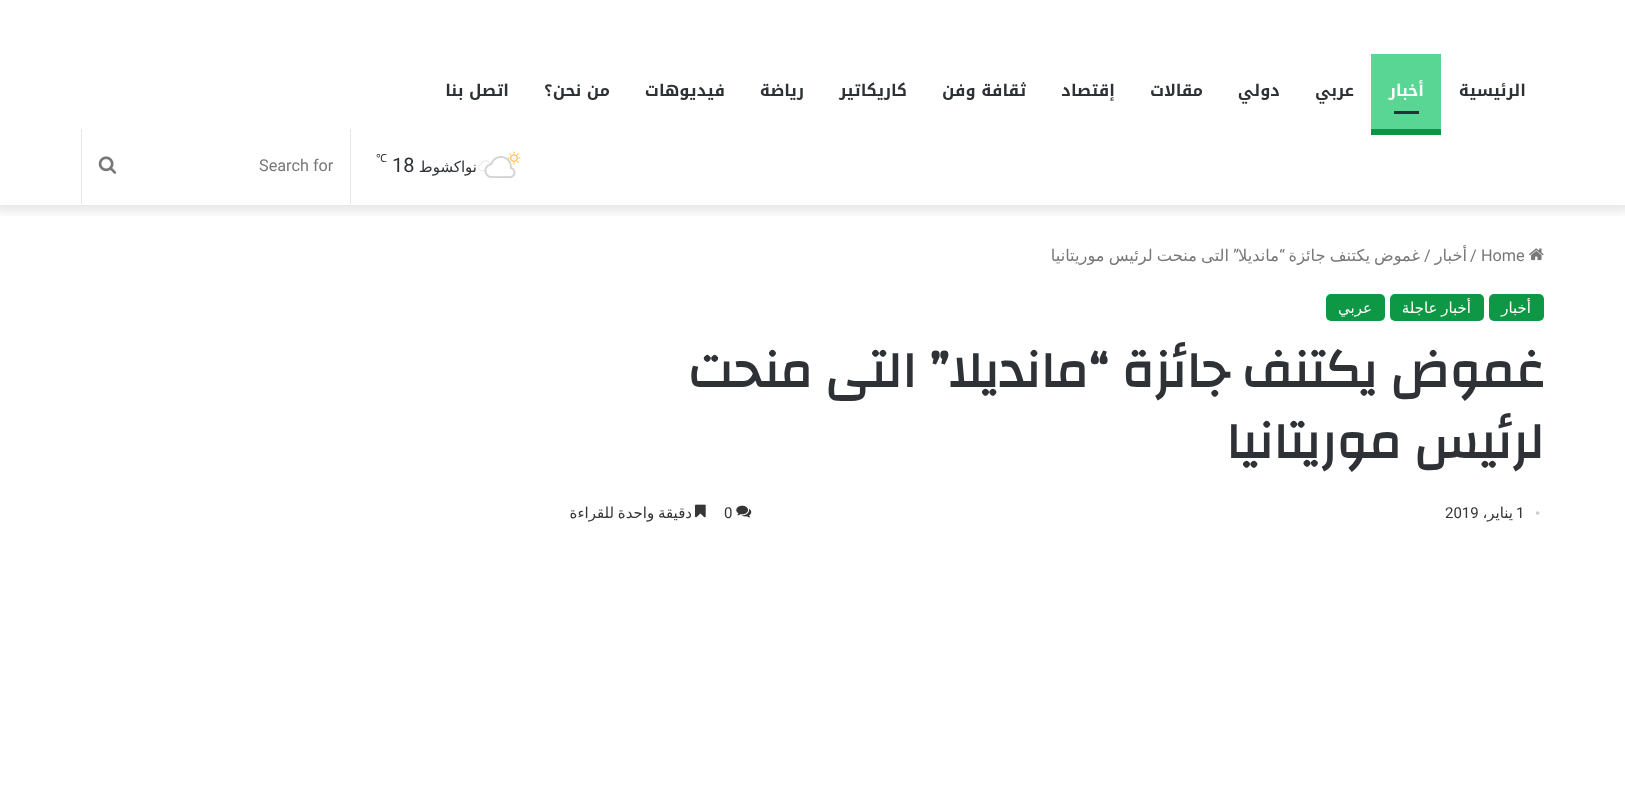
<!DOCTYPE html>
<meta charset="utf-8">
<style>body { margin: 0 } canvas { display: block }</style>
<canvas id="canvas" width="1625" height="801"></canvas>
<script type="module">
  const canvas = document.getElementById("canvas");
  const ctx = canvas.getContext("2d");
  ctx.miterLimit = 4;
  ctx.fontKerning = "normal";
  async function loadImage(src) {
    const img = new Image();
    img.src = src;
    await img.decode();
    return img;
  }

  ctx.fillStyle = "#ffffff";
  ctx.fillRect(0, 0, 1625, 801);
  ctx.save();
  ctx.beginPath();
  ctx.rect(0, 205, 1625, 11);
  ctx.clip();
  ctx.fillStyle = "rgba(0, 0, 0, 0.1)";
  ctx.filter = "blur(6px)";
  ctx.beginPath();
  ctx.rect(-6, -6, 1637, 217);
  ctx.fill();
  ctx.filter = "none";
  ctx.restore();
  ctx.direction = "rtl";
  ctx.font = "bold 16.25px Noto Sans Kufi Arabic";
  ctx.fillStyle = "#2e3136";
  ctx.fillText("الرئيسية", 1526, 96);
  ctx.fillStyle = "#0c9643";
  ctx.fillRect(1371, 129, 70, 6);
  ctx.fillStyle = "#59d694";
  ctx.fillRect(1371, 54, 70, 75);
  ctx.fillStyle = "#ffffff";
  ctx.fillText("أخبار", 1424, 96);
  ctx.fillStyle = "#2c2f34";
  ctx.fillRect(1394, 111, 25, 3);
  ctx.fillStyle = "#2e3136";
  ctx.fillText("عربي", 1354, 96);
  ctx.fillText("دولي", 1280, 96);
  ctx.fillText("مقالات", 1203, 96);
  ctx.fillText("إقتصاد", 1115, 96);
  ctx.fillText("ثقافة وفن", 1026, 96);
  ctx.fillText("كاريكاتير", 907, 96);
  ctx.fillText("رياضة", 804, 96);
  ctx.fillText("فيديوهات", 725, 96);
  ctx.fillText("من نحن؟", 610, 96);
  ctx.fillText("اتصل بنا", 509, 96);
  ctx.drawImage(await loadImage("img1.png"), 507, 151, 14, 14);
  ctx.drawImage(await loadImage("img4.png"), 478, 160, 13, 11);
  ctx.drawImage(await loadImage("img3.png"), 484, 158, 27, 13);
  ctx.drawImage(await loadImage("img2.png"), 484, 156, 32, 22);
  ctx.font = "15px DejaVu Sans";
  ctx.fillText("نواكشوط", 477, 172);
  ctx.direction = "ltr";
  ctx.font = "20px Roboto";
  ctx.fillText("18", 392, 172);
  ctx.font = "11px Noto Sans";
  ctx.fillText("℃", 376, 162);
  ctx.fillStyle = "#e6e6e6";
  ctx.fillRect(350, 129, 1, 75);
  ctx.fillRect(81, 129, 1, 75);
  ctx.font = "16.25px Roboto";
  ctx.fillStyle = "#777777";
  ctx.fillText("Search for", 259, 171);
  ctx.drawImage(await loadImage("img5.png"), 98, 156, 19, 18);
  ctx.drawImage(await loadImage("img6.png"), 1529, 248, 15, 13);
  ctx.fillText("Home", 1481, 261);
  ctx.fillText("/", 1470, 261);
  ctx.direction = "rtl";
  ctx.font = "16.25px DejaVu Sans";
  ctx.fillText("أخبار", 1467, 261);
  ctx.direction = "ltr";
  ctx.font = "16.25px Roboto";
  ctx.fillText("/", 1424, 261);
  ctx.wordSpacing = "-1px";
  ctx.direction = "rtl";
  ctx.font = "16.25px DejaVu Sans";
  ctx.fillText("غموض يكتنف جائزة", 1420, 261);
  ctx.wordSpacing = "0px";
  ctx.font = "16.25px Roboto";
  ctx.fillText("“", 1285, 261);
  ctx.font = "16.25px DejaVu Sans";
  ctx.fillText("مانديلا", 1279, 261);
  ctx.font = "16.25px Roboto";
  ctx.fillText("”", 1239, 261);
  ctx.wordSpacing = "-1px";
  ctx.font = "16.25px DejaVu Sans";
  ctx.fillText("التى منحت لرئيس موريتانيا", 1229, 261);
  ctx.fillStyle = "#0e9745";
  ctx.beginPath();
  ctx.roundRect(1489, 294, 55, 27, 5);
  ctx.fill();
  ctx.wordSpacing = "0px";
  ctx.font = "15px DejaVu Sans";
  ctx.fillStyle = "#ffffff";
  ctx.fillText("أخبار", 1531, 313);
  ctx.fillStyle = "#0e9745";
  ctx.beginPath();
  ctx.roundRect(1390, 294, 94, 27, 5);
  ctx.fill();
  ctx.wordSpacing = "-1px";
  ctx.fillStyle = "#ffffff";
  ctx.fillText("أخبار عاجلة", 1471, 313);
  ctx.fillStyle = "#0e9745";
  ctx.beginPath();
  ctx.roundRect(1326, 294, 59, 27, 5);
  ctx.fill();
  ctx.wordSpacing = "0px";
  ctx.fillStyle = "#ffffff";
  ctx.fillText("عربي", 1372, 313);
  ctx.font = "bold 51.25px Changa";
  ctx.fillStyle = "#2e3136";
  ctx.fillText("غموض يكتنف جائزة “مانديلا” التى منحت", 1544, 387);
  ctx.fillText("لرئيس موريتانيا", 1544, 458);
  ctx.direction = "ltr";
  ctx.font = "15px Liberation Serif";
  ctx.fillStyle = "#cdcdcd";
  ctx.fillText("•", 1535, 518);
  ctx.font = "15px Roboto";
  ctx.fillStyle = "#353535";
  ctx.fillText("1", 1516, 518);
  ctx.direction = "rtl";
  ctx.font = "15px DejaVu Sans";
  ctx.fillText("يناير،", 1513, 518);
  ctx.direction = "ltr";
  ctx.font = "15px Roboto";
  ctx.fillText("2019", 1445, 518);
  ctx.drawImage(await loadImage("img7.png"), 736, 505, 16, 13);
  ctx.fillText("0", 724, 518);
  ctx.drawImage(await loadImage("img8.png"), 695, 504, 11, 14);
  ctx.wordSpacing = "-1px";
  ctx.direction = "rtl";
  ctx.font = "15px DejaVu Sans";
  ctx.fillText("دقيقة واحدة للقراءة", 692, 518);
</script>
